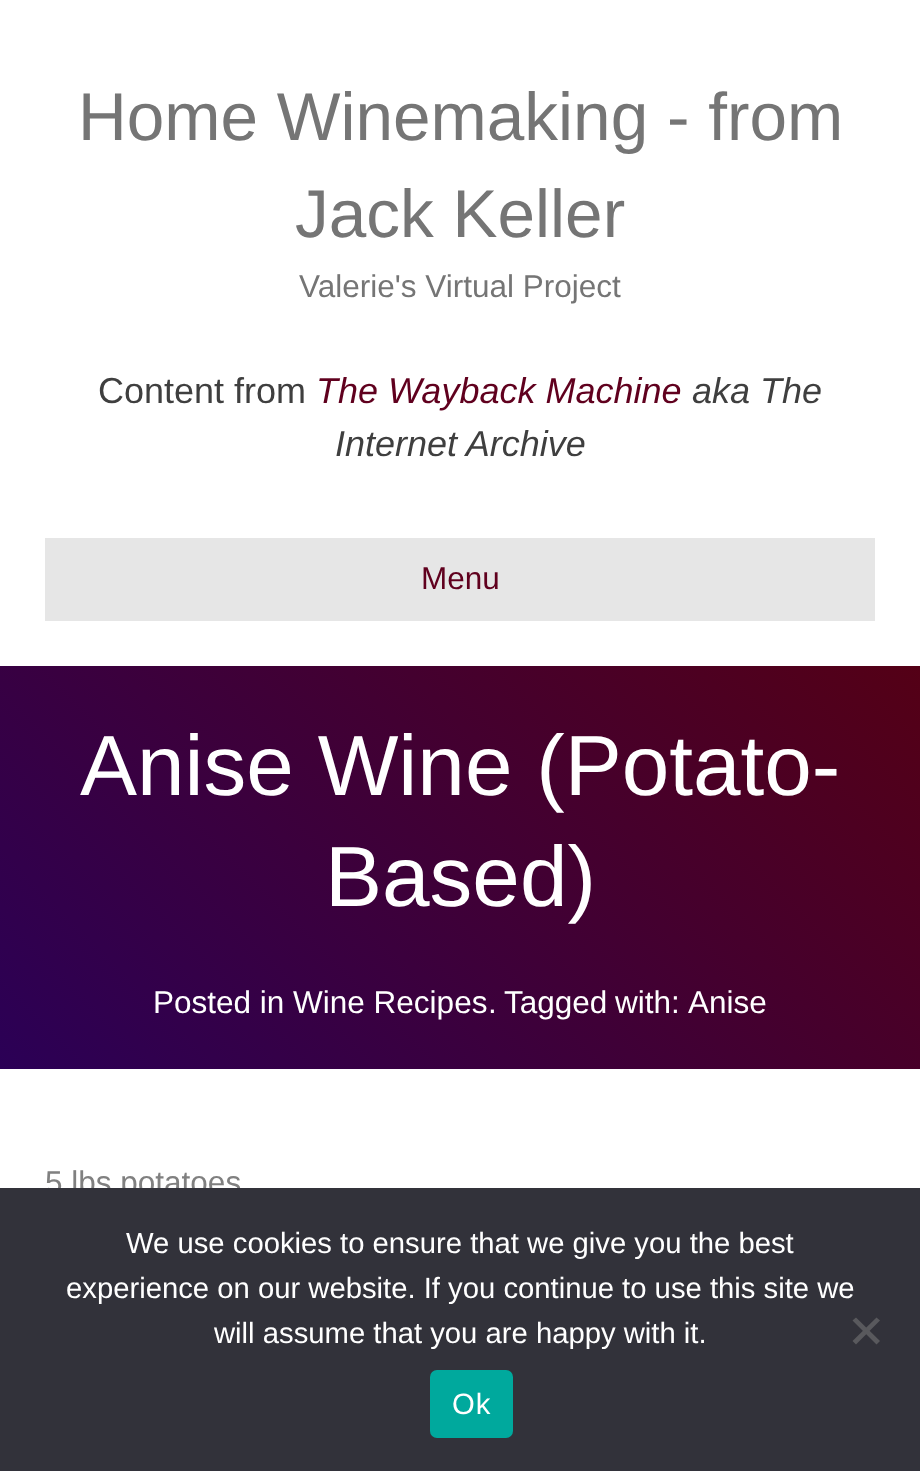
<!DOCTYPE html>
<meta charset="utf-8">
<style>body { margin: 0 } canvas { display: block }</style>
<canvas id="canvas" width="920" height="1471"></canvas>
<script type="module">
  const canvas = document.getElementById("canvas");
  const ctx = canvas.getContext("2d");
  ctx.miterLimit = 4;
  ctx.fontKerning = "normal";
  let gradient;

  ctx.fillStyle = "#ffffff";
  ctx.fillRect(0, 0, 920, 1471);
  ctx.font = "67.5px Liberation Sans";
  ctx.fillStyle = "#757575";
  ctx.fillText("Home Winemaking - from", 78, 140);
  ctx.fillText("Jack Keller", 295, 237);
  ctx.font = "31.5px Liberation Sans";
  ctx.fillText("Valerie's Virtual Project", 299, 297);
  ctx.font = "36px Liberation Sans";
  ctx.fillStyle = "#3f3f3f";
  ctx.fillText("Content from", 98, 403);
  ctx.font = "italic 36px Liberation Sans";
  ctx.fillStyle = "#60001e";
  ctx.fillText("The Wayback Machine", 316, 403);
  ctx.fillStyle = "#3f3f3f";
  ctx.fillText("aka The", 692, 403);
  ctx.fillText("Internet Archive", 335, 456);
  ctx.fillStyle = "#e6e6e6";
  ctx.fillRect(45, 538, 830, 83);
  ctx.font = "31.5px Liberation Sans";
  ctx.fillStyle = "#60001e";
  ctx.fillText("Menu", 421, 589);
  gradient = ctx.createLinearGradient(129, 1198, 791, 537);
  gradient.addColorStop(0, "#2b0056");
  gradient.addColorStop(1, "#540016");
  ctx.fillStyle = gradient;
  ctx.fillRect(0, 666, 920, 403);
  ctx.font = "85.5px Liberation Sans";
  ctx.fillStyle = "#ffffff";
  ctx.fillText("Anise Wine (Potato-", 80, 795);
  ctx.fillText("Based)", 325, 906);
  ctx.font = "31.5px Liberation Sans";
  ctx.fillText("Posted in Wine Recipes", 153, 1013);
  ctx.wordSpacing = "-1px";
  ctx.fillText(". Tagged with:", 488, 1013);
  ctx.wordSpacing = "0px";
  ctx.fillText("Anise", 688, 1013);
  ctx.fillStyle = "#808080";
  ctx.fillText("5 lbs potatoes", 45, 1193);
  ctx.fillStyle = "#32323a";
  ctx.fillRect(0, 1188, 920, 283);
  ctx.font = "29.25px Liberation Sans";
  ctx.fillStyle = "#ffffff";
  ctx.fillText("We use cookies to ensure that we give you the best", 126, 1253);
  ctx.fillText("experience on our website. If you continue to use this site we", 66, 1298);
  ctx.fillText("will assume that you are happy with it.", 214, 1343);
  ctx.fillStyle = "#59595d";
  ctx.beginPath();
  ctx.moveTo(876.5, 1317.5);
  ctx.lineTo(880, 1320.5);
  ctx.lineTo(856, 1344.5);
  ctx.lineTo(852.5, 1341);
  ctx.closePath();
  ctx.fill();
  ctx.beginPath();
  ctx.moveTo(852.5, 1320.5);
  ctx.lineTo(856, 1317.5);
  ctx.lineTo(880, 1341);
  ctx.lineTo(876.5, 1344.5);
  ctx.closePath();
  ctx.fill();
  ctx.fillStyle = "#00a99d";
  ctx.beginPath();
  ctx.roundRect(430, 1370, 83, 68, 7);
  ctx.fill();
  ctx.letterSpacing = "1px";
  ctx.fillStyle = "#ffffff";
  ctx.fillText("Ok", 452, 1414);
</script>
